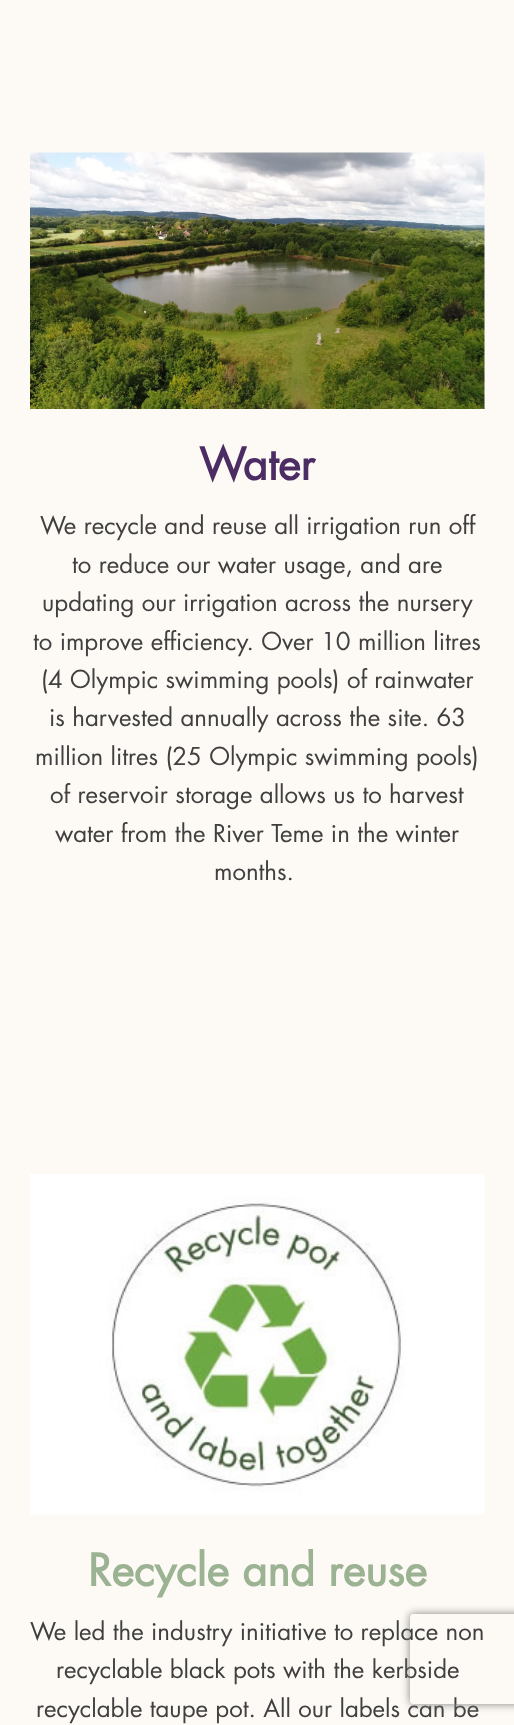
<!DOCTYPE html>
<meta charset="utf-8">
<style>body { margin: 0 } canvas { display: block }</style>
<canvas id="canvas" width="514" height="1725"></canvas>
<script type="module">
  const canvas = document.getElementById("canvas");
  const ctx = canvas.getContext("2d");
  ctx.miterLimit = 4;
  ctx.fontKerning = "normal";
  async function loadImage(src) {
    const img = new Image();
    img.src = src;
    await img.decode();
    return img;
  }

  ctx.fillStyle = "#fdfaf5";
  ctx.fillRect(0, 0, 514, 1725);
  ctx.drawImage(await loadImage("img1.png"), 30, 152, 455, 257);
  ctx.font = "bold 43.25px Futura";
  ctx.fillStyle = "#4b2d63";
  ctx.fillText("Water", 199, 480);
  ctx.font = "24px Futura";
  ctx.fillStyle = "#404040";
  ctx.fillText("We recycle and reuse all irrigation run off", 40, 534);
  ctx.fillText("to reduce our water usage, and are", 72, 573);
  ctx.fillText("updating our irrigation across the nursery", 42, 611);
  ctx.fillText("to improve efficiency. Over 10 million litres", 33, 650);
  ctx.fillText("(4 Olympic swimming pools) of rainwater", 41, 688);
  ctx.fillText("is harvested annually across the site. 63", 49, 726);
  ctx.fillText("million litres (25 Olympic swimming pools)", 35, 765);
  ctx.fillText("of reservoir storage allows us to harvest", 50, 803);
  ctx.fillText("water from the River Teme in the winter", 55, 842);
  ctx.fillText("months.", 214, 880);
  ctx.drawImage(await loadImage("img2.png"), 30, 1174, 455, 341);
  ctx.font = "bold 43.25px Futura";
  ctx.fillStyle = "#9bb293";
  ctx.fillText("Recycle and reuse", 88, 1586);
  ctx.font = "24px Futura";
  ctx.fillStyle = "#404040";
  ctx.fillText("We led the industry initiative to replace non", 30, 1640);
  ctx.fillText("recyclable black pots with the kerbside", 56, 1678);
  ctx.fillText("recyclable taupe pot. All our labels can be", 36, 1717);
  ctx.save();
  ctx.beginPath();
  ctx.moveTo(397, 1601);
  ctx.lineTo(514, 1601);
  ctx.lineTo(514, 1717);
  ctx.lineTo(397, 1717);
  ctx.closePath();
  ctx.moveTo(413, 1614);
  ctx.lineTo(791, 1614);
  ctx.bezierCurveTo(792.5, 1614, 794, 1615.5, 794, 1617);
  ctx.lineTo(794, 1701);
  ctx.bezierCurveTo(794, 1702.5, 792.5, 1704, 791, 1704);
  ctx.lineTo(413, 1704);
  ctx.bezierCurveTo(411.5, 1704, 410, 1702.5, 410, 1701);
  ctx.lineTo(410, 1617);
  ctx.bezierCurveTo(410, 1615.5, 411.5, 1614, 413, 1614);
  ctx.closePath();
  ctx.clip("evenodd");
  ctx.fillStyle = "#808080";
  ctx.filter = "blur(4px)";
  ctx.beginPath();
  ctx.roundRect(410, 1614, 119, 90, 3);
  ctx.fill();
  ctx.filter = "none";
  ctx.restore();
</script>
